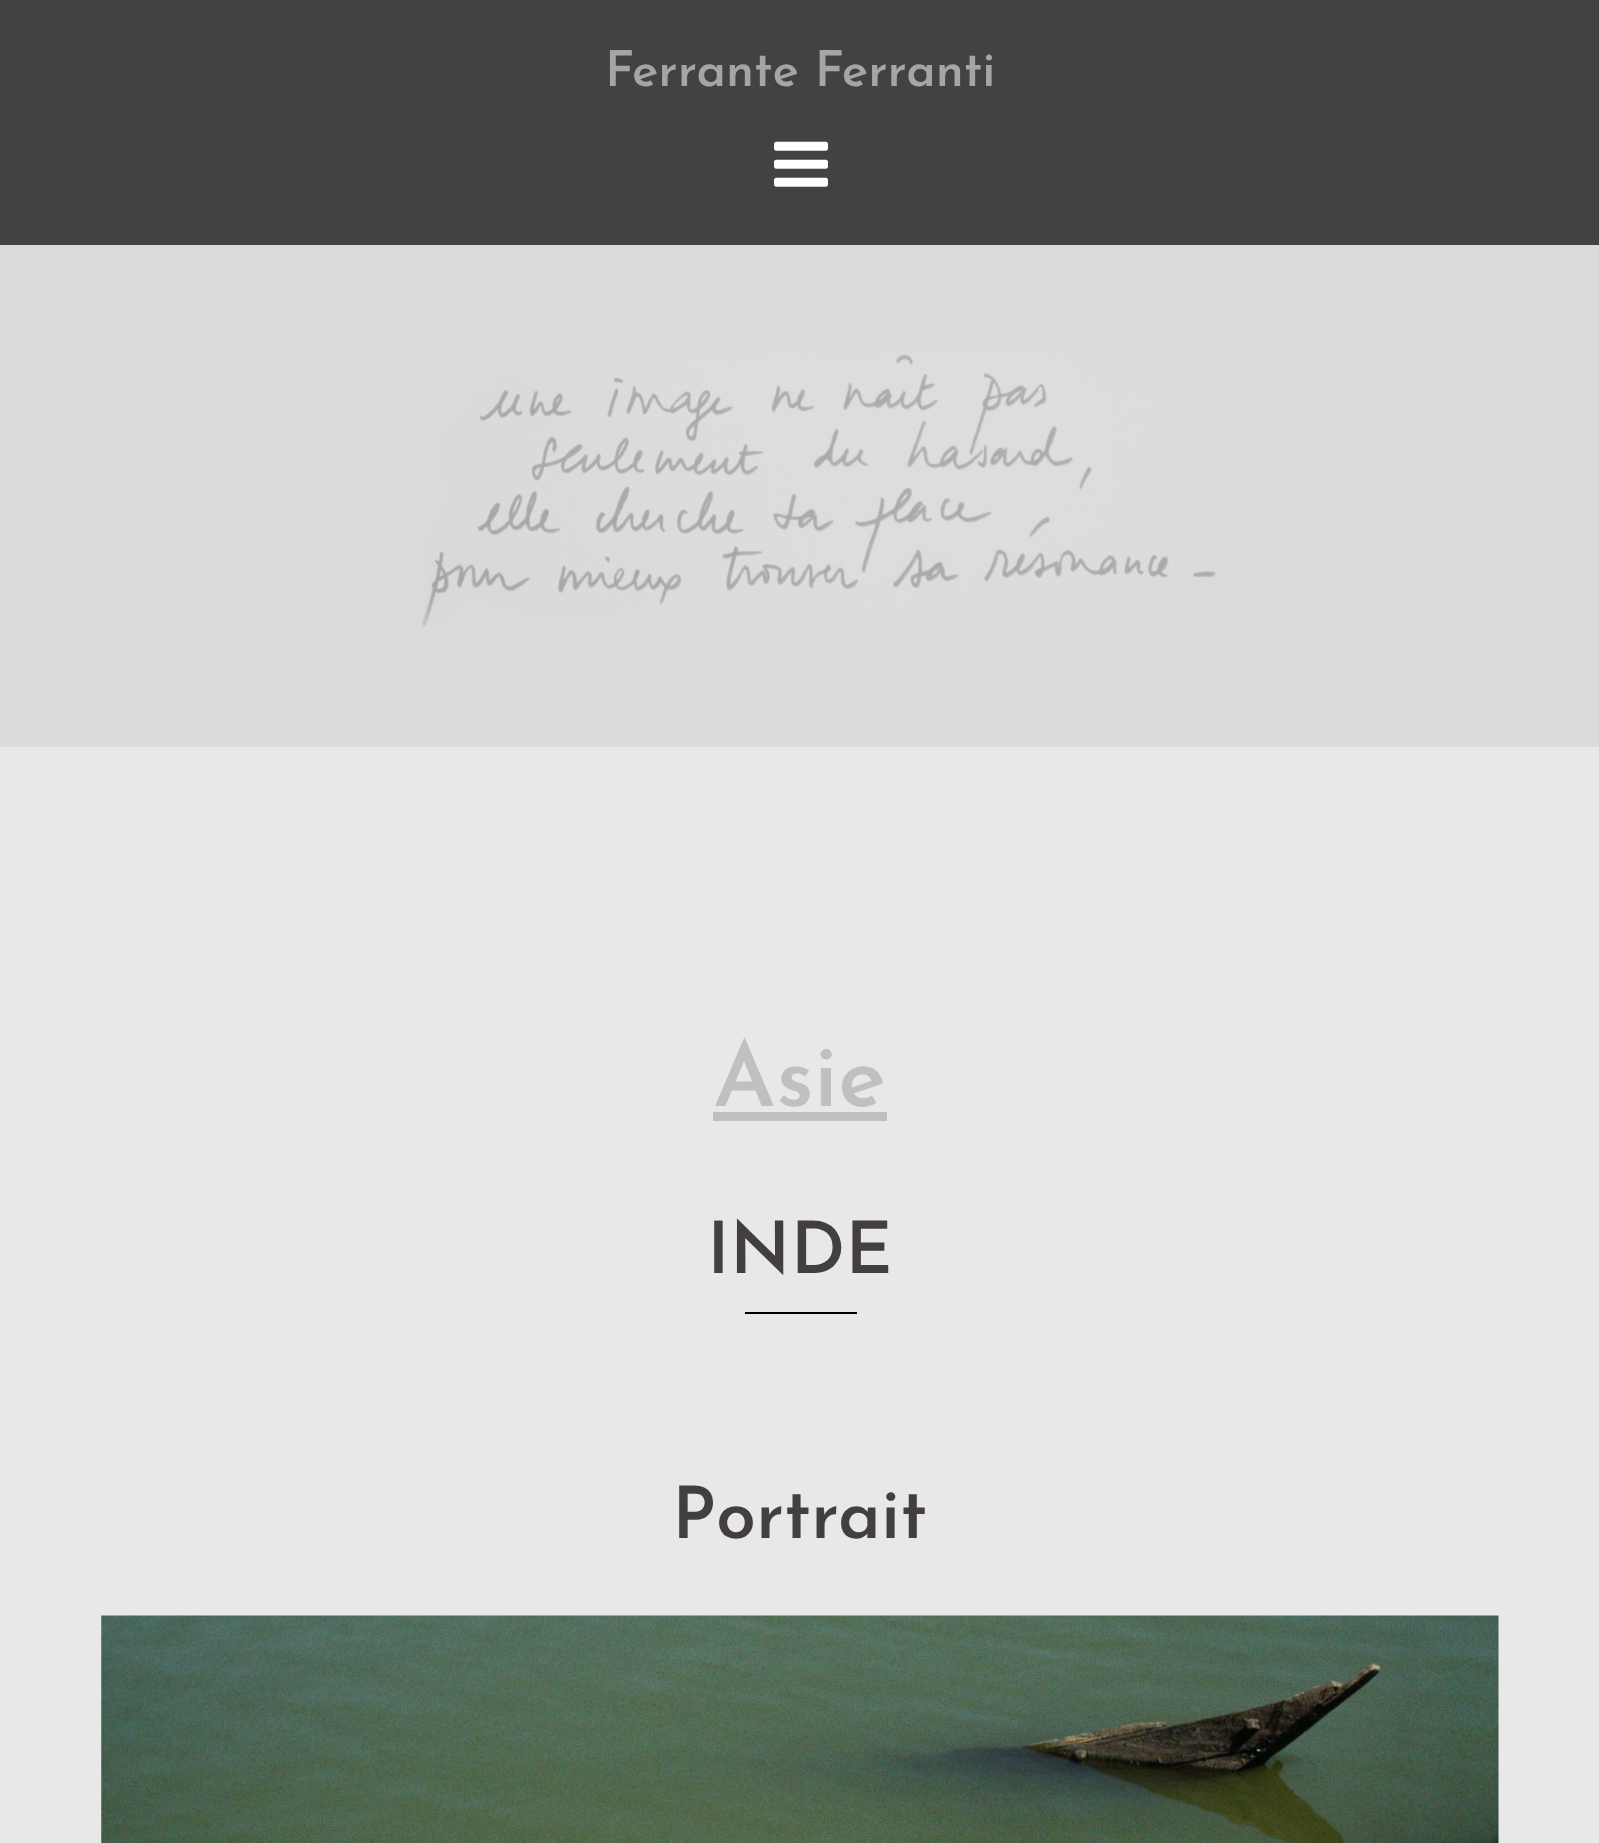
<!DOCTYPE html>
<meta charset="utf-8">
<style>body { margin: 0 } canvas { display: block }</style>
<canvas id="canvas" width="1599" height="1843"></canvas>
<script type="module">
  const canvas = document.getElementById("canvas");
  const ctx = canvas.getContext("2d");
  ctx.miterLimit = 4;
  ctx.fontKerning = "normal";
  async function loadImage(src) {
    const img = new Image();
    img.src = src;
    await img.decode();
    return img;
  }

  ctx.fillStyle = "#e8e8e8";
  ctx.fillRect(0, 0, 1599, 1843);
  ctx.fillStyle = "#dbdbdb";
  ctx.fillRect(0, 245, 1599, 502);
  ctx.fillStyle = "#424242";
  ctx.fillRect(0, 0, 1599, 245);
  ctx.font = "600 49.5px Josefin Sans";
  ctx.fillStyle = "#a5a5a5";
  ctx.fillText("Ferrante Ferranti", 605, 86);
  ctx.drawImage(await loadImage("img1.png"), 774, 141, 54, 46);
  ctx.drawImage(await loadImage("img2.png"), 420, 351, 799, 286);
  ctx.font = "600 90px Josefin Sans";
  ctx.fillStyle = "#c0c0c0";
  ctx.fillText("Asie", 713, 1106);
  ctx.fillRect(713, 1112, 174, 9);
  ctx.font = "600 72px Josefin Sans";
  ctx.fillStyle = "#443f3f";
  ctx.fillText("INDE", 707, 1273);
  ctx.fillStyle = "#000000";
  ctx.fillRect(745, 1312, 112, 2);
  ctx.fillStyle = "#443f3f";
  ctx.fillText("Portrait", 672, 1538);
  ctx.drawImage(await loadImage("img3.png"), 101, 1615, 1398, 228);
</script>
